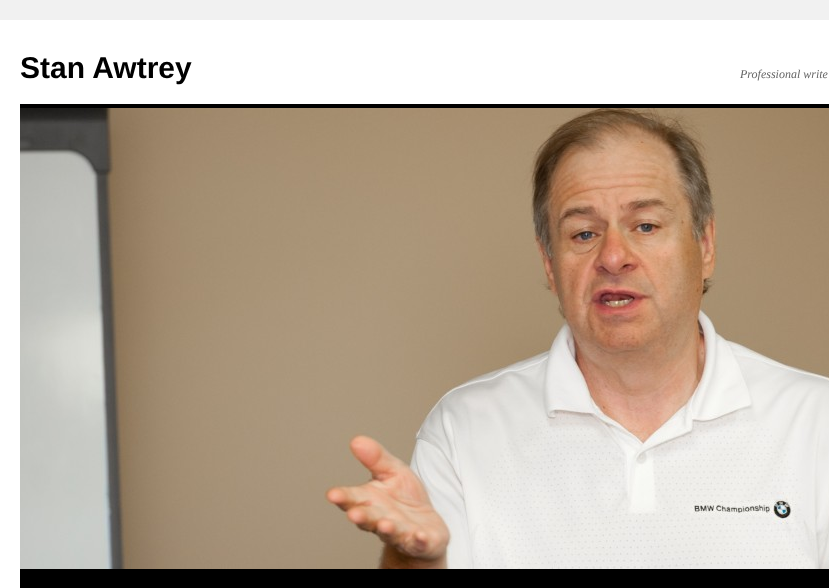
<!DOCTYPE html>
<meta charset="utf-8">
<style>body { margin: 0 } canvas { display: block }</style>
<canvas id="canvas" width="829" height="588"></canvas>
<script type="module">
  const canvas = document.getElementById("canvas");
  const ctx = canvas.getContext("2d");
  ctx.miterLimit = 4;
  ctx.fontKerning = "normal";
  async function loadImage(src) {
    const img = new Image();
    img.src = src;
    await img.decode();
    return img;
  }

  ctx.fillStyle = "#f1f1f1";
  ctx.fillRect(0, 0, 829, 588);
  ctx.fillStyle = "#ffffff";
  ctx.fillRect(0, 20, 829, 568);
  ctx.font = "bold 30px Liberation Sans";
  ctx.fillStyle = "#000000";
  ctx.fillText("Stan Awtrey", 20, 78);
  ctx.font = "italic 12px Liberation Serif";
  ctx.fillStyle = "#666666";
  ctx.fillText("Professional write", 740, 78);
  ctx.fillStyle = "#000000";
  ctx.fillRect(20, 104, 809, 4);
  ctx.fillRect(20, 569, 809, 19);
  ctx.drawImage(await loadImage("img1.png"), 20, 108, 809, 461);
</script>
